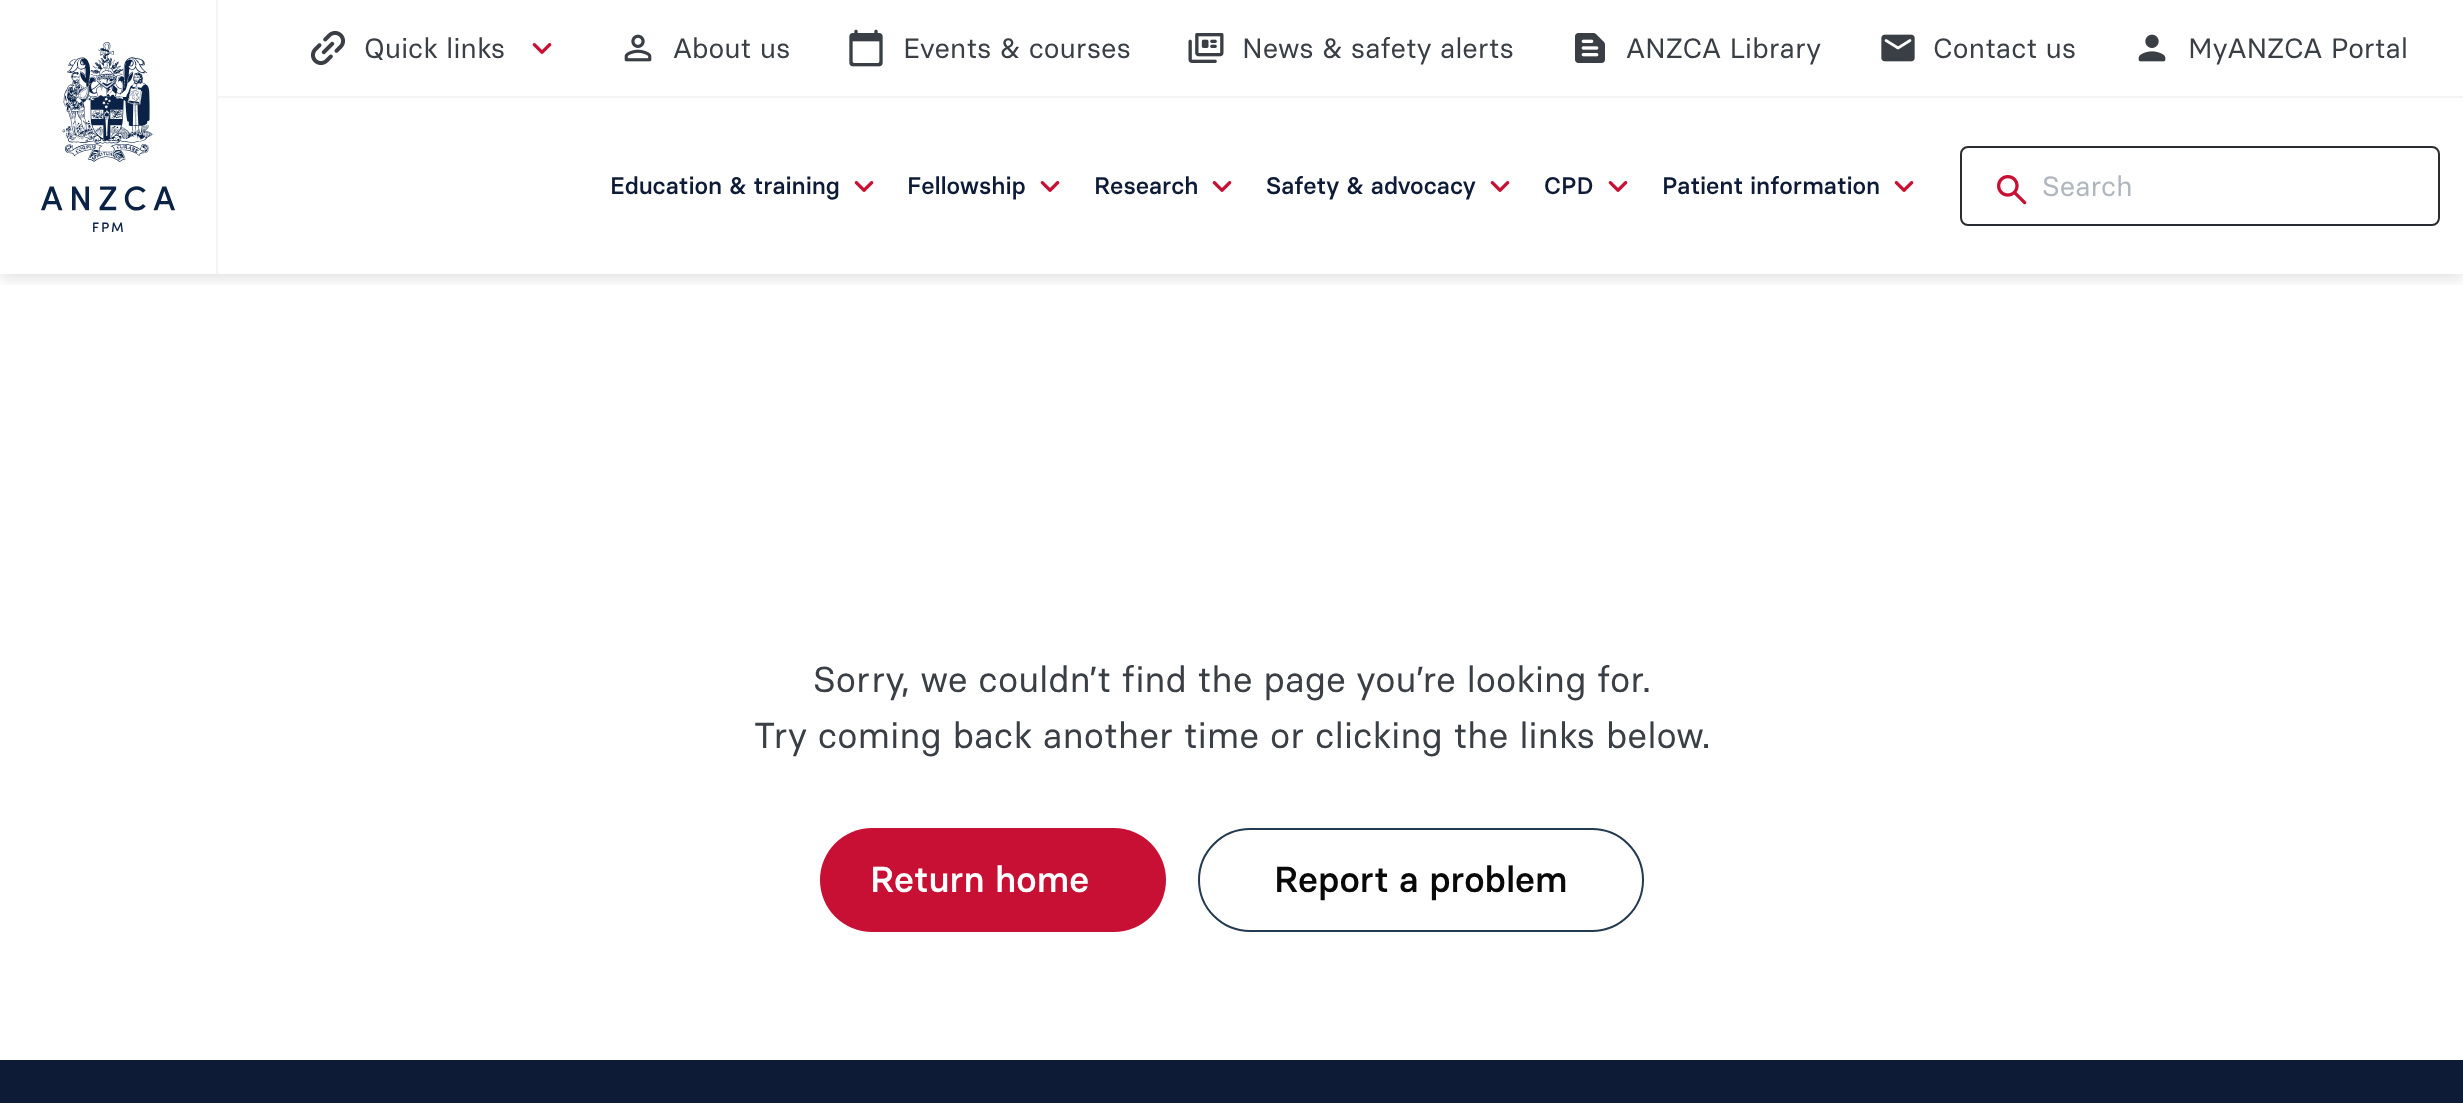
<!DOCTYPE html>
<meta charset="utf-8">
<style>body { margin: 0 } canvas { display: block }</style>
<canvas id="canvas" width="2463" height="1103"></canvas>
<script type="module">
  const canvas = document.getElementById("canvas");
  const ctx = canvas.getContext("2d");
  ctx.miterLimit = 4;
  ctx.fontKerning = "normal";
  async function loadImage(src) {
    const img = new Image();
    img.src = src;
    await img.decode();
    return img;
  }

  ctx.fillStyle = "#ffffff";
  ctx.fillRect(0, 0, 2463, 1103);
  ctx.save();
  ctx.beginPath();
  ctx.rect(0, 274, 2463, 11);
  ctx.clip();
  ctx.fillStyle = "rgba(10, 9, 9, 0.1)";
  ctx.filter = "blur(6px)";
  ctx.beginPath();
  ctx.rect(0, 6, 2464, 274);
  ctx.fill();
  ctx.filter = "none";
  ctx.restore();
  ctx.fillStyle = "#f4f4f5";
  ctx.fillRect(216, 0, 2, 274);
  ctx.drawImage(await loadImage("img1.png"), 41, 42, 134, 190);
  ctx.fillRect(218, 96, 2245, 2);
  ctx.drawImage(await loadImage("img2.png"), 310, 30, 36, 36);
  ctx.font = "28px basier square";
  ctx.fillStyle = "#3a3f46";
  ctx.fillText("Quick links", 364, 58);
  ctx.drawImage(await loadImage("img3.png"), 532, 43, 20, 11);
  ctx.drawImage(await loadImage("img4.png"), 624, 34, 28, 28);
  ctx.fillText("About us", 673, 58);
  ctx.drawImage(await loadImage("img5.png"), 849, 29, 34, 38);
  ctx.fillText("Events & courses", 903, 58);
  ctx.drawImage(await loadImage("img6.png"), 1188, 33, 36, 30);
  ctx.fillText("News & safety alerts", 1242, 58);
  ctx.drawImage(await loadImage("img7.png"), 1575, 33, 30, 30);
  ctx.fillText("ANZCA Library", 1626, 58);
  ctx.drawImage(await loadImage("img8.png"), 1881, 34, 34, 28);
  ctx.fillText("Contact us", 1933, 58);
  ctx.drawImage(await loadImage("img9.png"), 2138, 34, 28, 28);
  ctx.fillText("MyANZCA Portal", 2188, 58);
  ctx.font = "500 24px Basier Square";
  ctx.fillStyle = "#0d1b37";
  ctx.fillText("Education & training", 610, 194);
  ctx.drawImage(await loadImage("img3.png"), 854, 181, 20, 11);
  ctx.fillText("Fellowship", 907, 194);
  ctx.drawImage(await loadImage("img3.png"), 1040, 181, 20, 11);
  ctx.fillText("Research", 1094, 194);
  ctx.drawImage(await loadImage("img3.png"), 1212, 181, 20, 11);
  ctx.fillText("Safety & advocacy", 1266, 194);
  ctx.drawImage(await loadImage("img3.png"), 1490, 181, 20, 11);
  ctx.fillText("CPD", 1544, 194);
  ctx.drawImage(await loadImage("img3.png"), 1608, 181, 20, 11);
  ctx.fillText("Patient information", 1662, 194);
  ctx.drawImage(await loadImage("img3.png"), 1894, 181, 20, 11);
  ctx.beginPath();
  ctx.roundRect(1961, 147, 478, 78, 7);
  ctx.strokeStyle = "#292d32";
  ctx.lineWidth = 2;
  ctx.stroke();
  ctx.drawImage(await loadImage("img10.png"), 1997, 175, 30, 30);
  ctx.font = "28px basier square";
  ctx.fillStyle = "#b0b6be";
  ctx.fillText("Search", 2042, 196);
  ctx.font = "36px basier square";
  ctx.fillStyle = "#3a3f46";
  ctx.fillText("Sorry, we couldn’t find the page you’re looking for.", 813, 692);
  ctx.fillText("Try coming back another time or clicking the links below.", 754, 748);
  ctx.fillStyle = "#c71034";
  ctx.beginPath();
  ctx.roundRect(820, 828, 346, 104, 52);
  ctx.fill();
  ctx.font = "500 36px Basier Square";
  ctx.fillStyle = "#ffffff";
  ctx.fillText("Return home", 870, 892);
  ctx.beginPath();
  ctx.roundRect(1199, 829, 444, 102, 51);
  ctx.strokeStyle = "#233a51";
  ctx.stroke();
  ctx.fillStyle = "#0a0909";
  ctx.fillText("Report a problem", 1274, 892);
  ctx.fillStyle = "#0d1b37";
  ctx.fillRect(0, 1060, 2463, 43);
</script>
